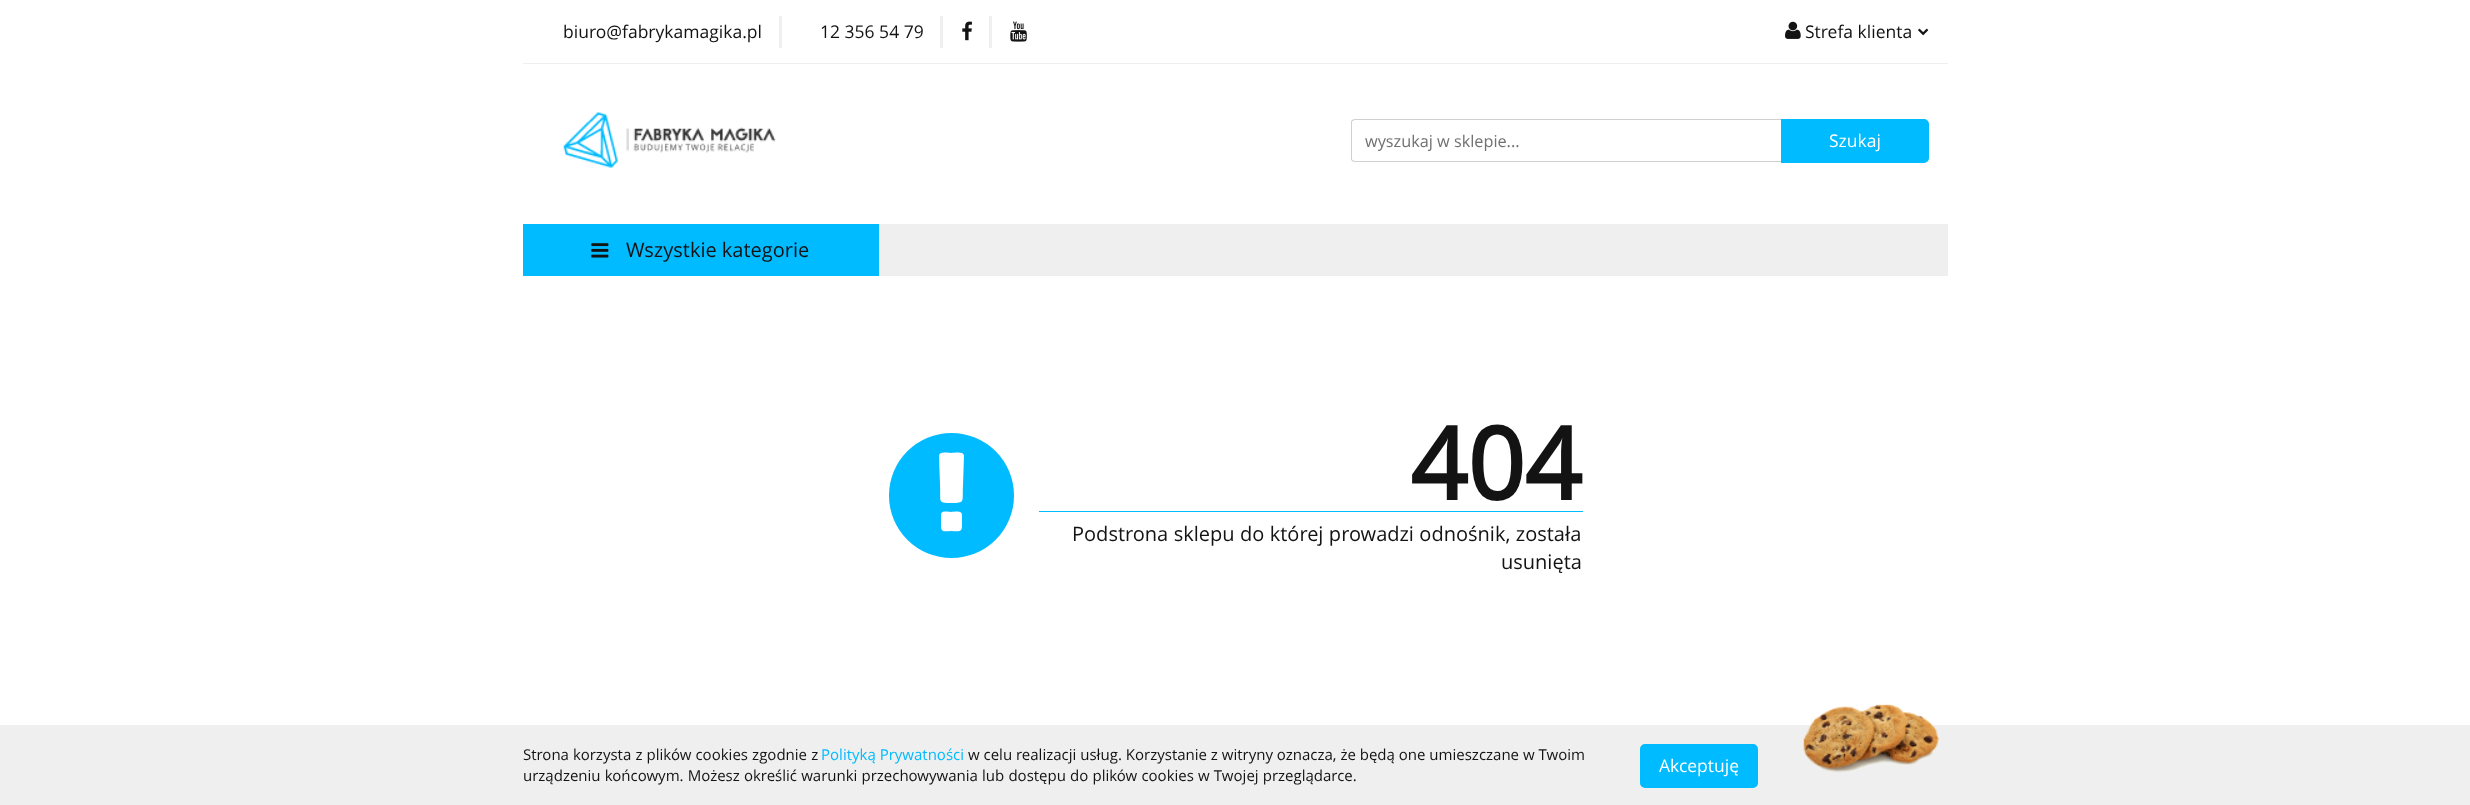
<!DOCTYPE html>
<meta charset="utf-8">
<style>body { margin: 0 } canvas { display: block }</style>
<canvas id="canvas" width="2470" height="805"></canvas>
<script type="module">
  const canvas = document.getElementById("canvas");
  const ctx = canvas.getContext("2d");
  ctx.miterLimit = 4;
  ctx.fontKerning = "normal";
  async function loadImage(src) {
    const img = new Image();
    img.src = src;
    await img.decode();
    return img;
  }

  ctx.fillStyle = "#ffffff";
  ctx.fillRect(0, 0, 2470, 805);
  ctx.fillStyle = "#efefef";
  ctx.fillRect(523, 63, 1425, 1);
  ctx.font = "17.5px Open Sans";
  ctx.fillStyle = "#131313";
  ctx.fillText("biuro@fabrykamagika.pl", 563, 38);
  ctx.fillStyle = "#efefef";
  ctx.fillRect(779, 16, 3, 32);
  ctx.fillStyle = "#131313";
  ctx.fillText("12 356 54 79", 820, 38);
  ctx.fillStyle = "#efefef";
  ctx.fillRect(940, 16, 3, 32);
  ctx.drawImage(await loadImage("img1.png"), 962, 21, 10, 20);
  ctx.fillRect(989, 16, 3, 32);
  ctx.drawImage(await loadImage("img2.png"), 1010, 21, 17, 21);
  ctx.drawImage(await loadImage("img3.png"), 1785, 21, 16, 18);
  ctx.fillStyle = "#131313";
  ctx.fillText("Strefa klienta", 1805, 38);
  ctx.drawImage(await loadImage("img4.png"), 1918, 28, 11, 8);
  ctx.drawImage(await loadImage("img5.png"), 563, 112, 213, 56);
  ctx.fillStyle = "#d0d0d0";
  ctx.beginPath();
  ctx.moveTo(1355, 119);
  ctx.lineTo(1781, 119);
  ctx.lineTo(1781, 162);
  ctx.lineTo(1355, 162);
  ctx.bezierCurveTo(1353, 162, 1351, 161, 1351, 159);
  ctx.lineTo(1351, 122);
  ctx.bezierCurveTo(1351, 120, 1353, 119, 1355, 119);
  ctx.closePath();
  ctx.moveTo(1355, 120);
  ctx.lineTo(1781, 120);
  ctx.lineTo(1781, 161);
  ctx.lineTo(1355, 161);
  ctx.bezierCurveTo(1354, 161, 1352, 160, 1352, 159);
  ctx.lineTo(1352, 122);
  ctx.bezierCurveTo(1352, 121, 1354, 120, 1355, 120);
  ctx.closePath();
  ctx.fill("evenodd");
  ctx.font = "16.25px Open Sans";
  ctx.fillStyle = "#717171";
  ctx.fillText("wyszukaj w sklepie...", 1365, 147);
  ctx.fillStyle = "#00bbff";
  ctx.beginPath();
  ctx.roundRect(1783, 121, 144, 40, [0, 3, 3, 0]);
  ctx.fill();
  ctx.strokeStyle = "#00bbff";
  ctx.lineWidth = 4;
  ctx.stroke();
  ctx.font = "17.5px Open Sans";
  ctx.fillStyle = "#ffffff";
  ctx.fillText("Szukaj", 1829, 147);
  ctx.fillStyle = "#efefef";
  ctx.fillRect(879, 224, 1069, 52);
  ctx.fillStyle = "#00bbff";
  ctx.fillRect(523, 224, 356, 52);
  ctx.drawImage(await loadImage("img6.png"), 591, 243, 18, 15);
  ctx.font = "20px Open Sans";
  ctx.fillStyle = "#131313";
  ctx.fillText("Wszystkie kategorie", 626, 257);
  ctx.fillStyle = "#00bbff";
  ctx.beginPath();
  ctx.arc(951.5, 495.5, 62.5, 0, Math.PI * 2);
  ctx.fill();
  ctx.fillStyle = "#ffffff";
  ctx.beginPath();
  ctx.moveTo(962, 515);
  ctx.lineTo(962, 526);
  ctx.bezierCurveTo(962, 533, 958, 531, 951, 531);
  ctx.bezierCurveTo(945, 531, 941, 533, 941, 526);
  ctx.lineTo(941, 515);
  ctx.bezierCurveTo(941, 510, 948, 512, 951, 512);
  ctx.bezierCurveTo(954, 512, 962, 510, 962, 515);
  ctx.closePath();
  ctx.moveTo(964, 456);
  ctx.lineTo(963, 485);
  ctx.bezierCurveTo(962, 502, 966, 503, 951, 503);
  ctx.bezierCurveTo(937, 503, 941, 502, 940, 485);
  ctx.lineTo(939, 456);
  ctx.bezierCurveTo(939, 451, 949, 453, 951, 453);
  ctx.bezierCurveTo(954, 453, 964, 451, 964, 456);
  ctx.closePath();
  ctx.fill();
  ctx.fillStyle = "#00bbff";
  ctx.fillRect(1039, 511, 544, 1);
  ctx.font = "bold 100px Open Sans";
  ctx.fillStyle = "#131313";
  ctx.fillText("404", 1410, 500);
  ctx.wordSpacing = "0.25px";
  ctx.font = "20px Open Sans";
  ctx.fillText("Podstrona sklepu do której prowadzi odnośnik, została", 1072, 541);
  ctx.wordSpacing = "0px";
  ctx.fillText("usunięta", 1501, 569);
  ctx.fillStyle = "#efefef";
  ctx.fillRect(0, 725, 2470, 80);
  ctx.wordSpacing = "0.25px";
  ctx.font = "15px Open Sans";
  ctx.fillStyle = "#131313";
  ctx.fillText("Strona korzysta z plików cookies zgodnie z", 523, 760);
  ctx.wordSpacing = "0px";
  ctx.fillStyle = "#00bbff";
  ctx.fillText("Polityką Prywatności", 821, 760);
  ctx.fillStyle = "#131313";
  ctx.fillText("w celu realizacji usług. Korzystanie z witryny oznacza, że będą one umieszczane w Twoim", 968, 760);
  ctx.wordSpacing = "0.25px";
  ctx.fillText("urządzeniu końcowym. Możesz określić warunki przechowywania lub dostępu do plików cookies w Twojej przeglądarce.", 523, 781);
  ctx.fillStyle = "#00bbff";
  ctx.beginPath();
  ctx.roundRect(1642, 746, 114, 40, 3);
  ctx.fill();
  ctx.stroke();
  ctx.wordSpacing = "0px";
  ctx.font = "17.5px Open Sans";
  ctx.fillStyle = "#ffffff";
  ctx.fillText("Akceptuję", 1659, 772);
  ctx.drawImage(await loadImage("img7.png"), 1803, 703, 136, 70);
</script>
